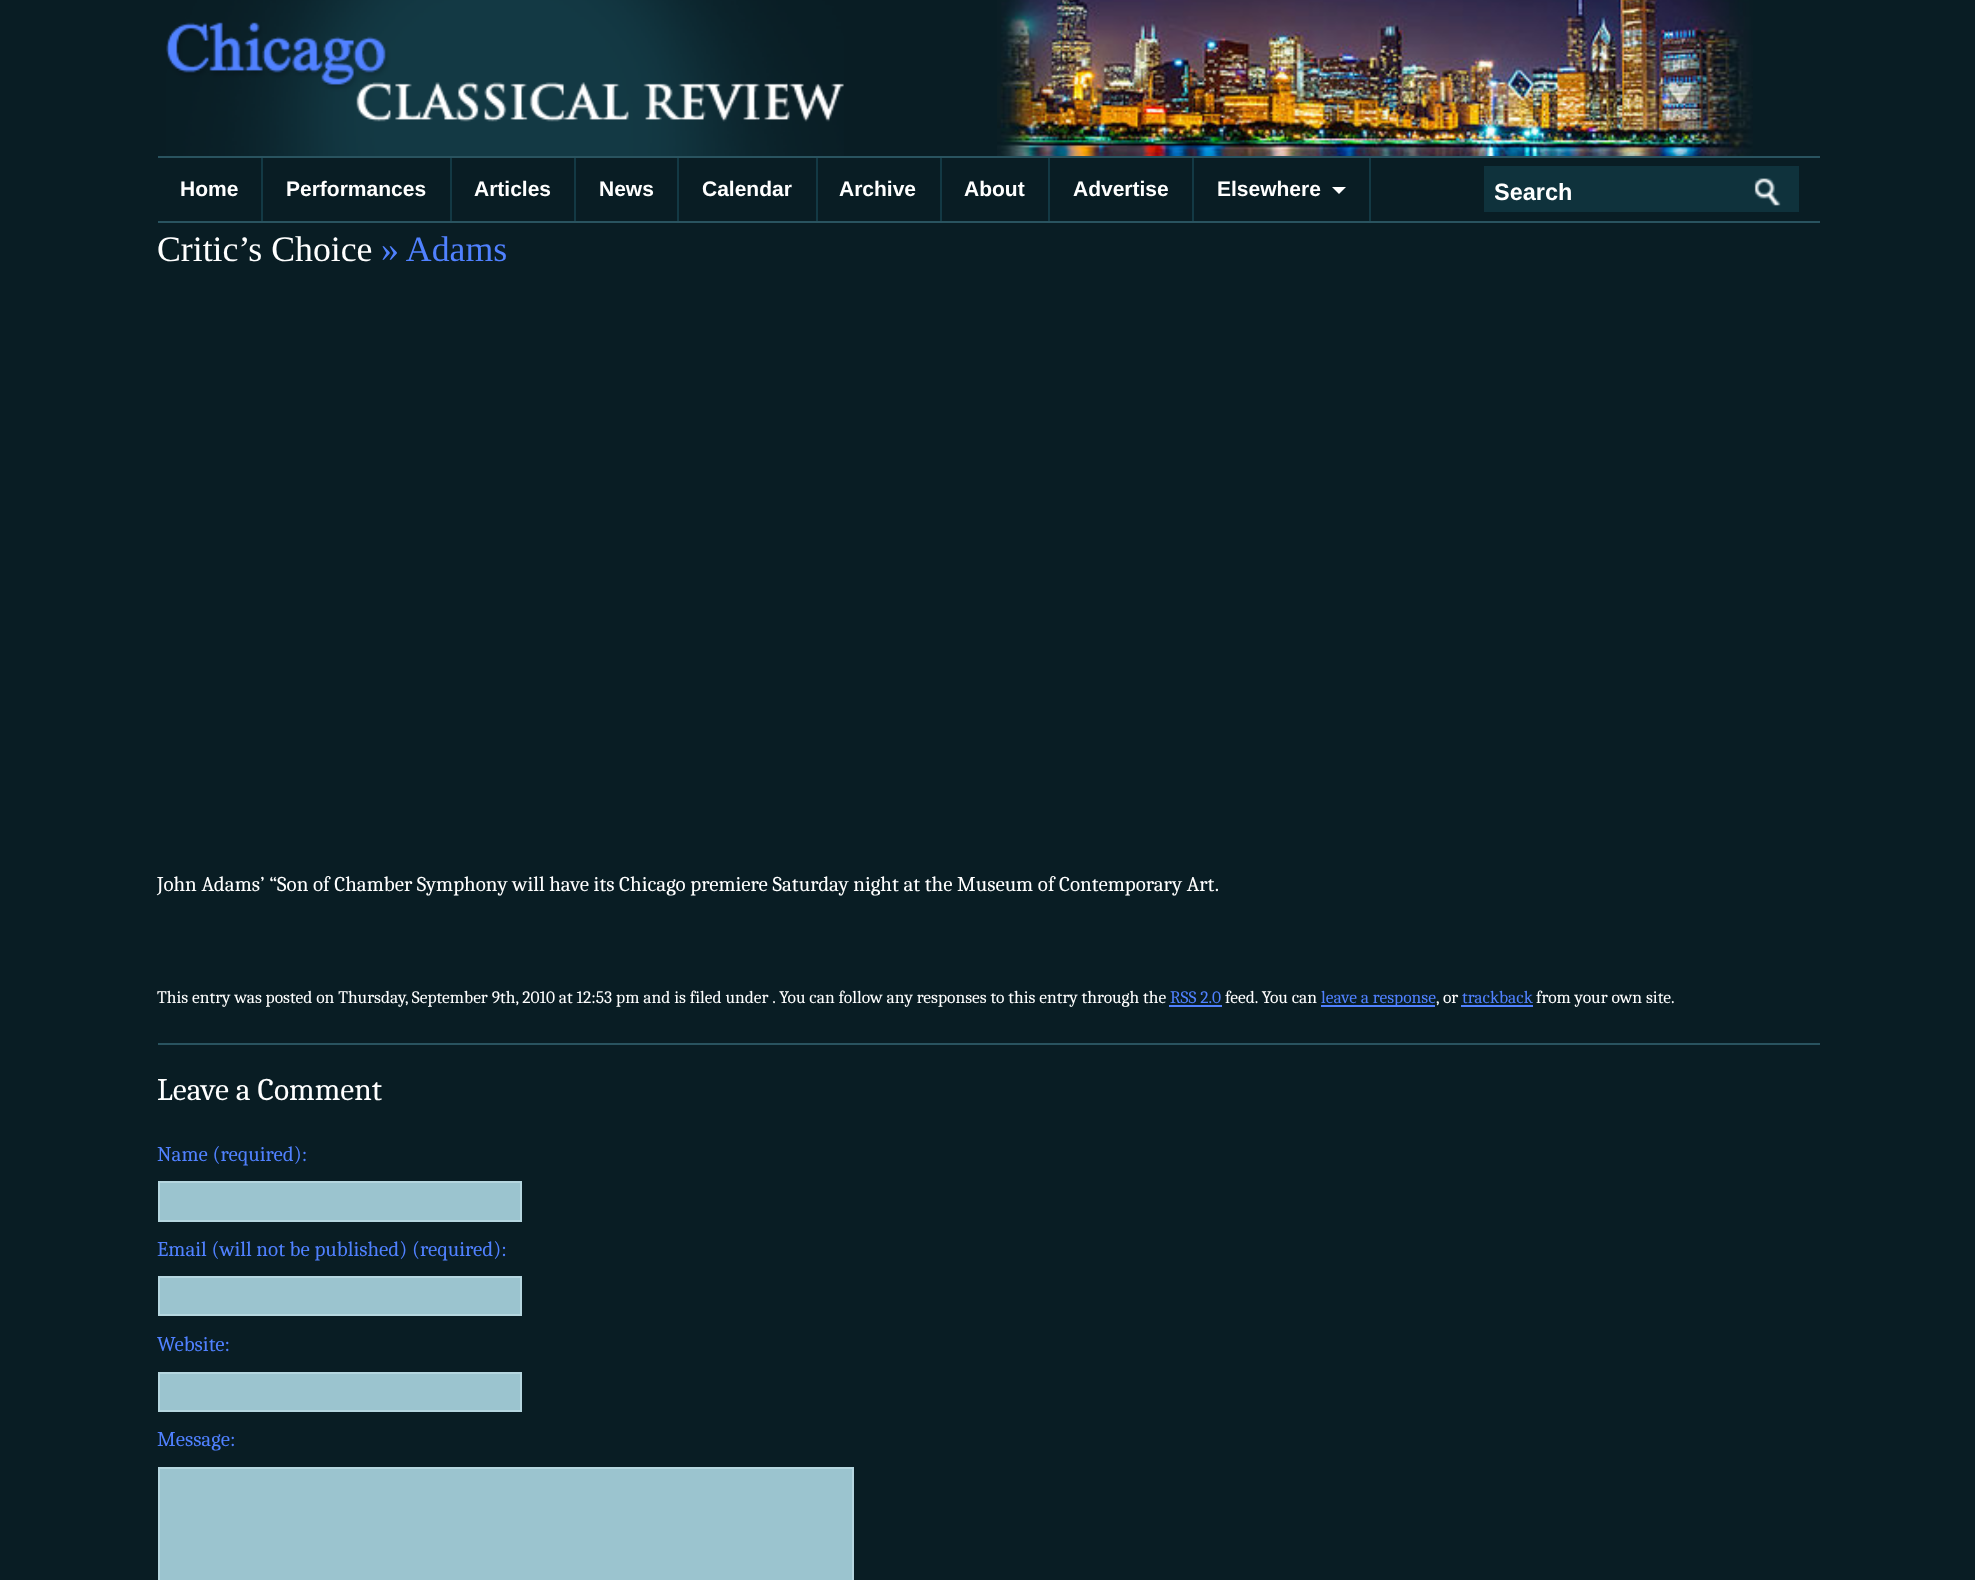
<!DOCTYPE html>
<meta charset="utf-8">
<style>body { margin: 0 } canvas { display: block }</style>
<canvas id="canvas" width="1975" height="1580"></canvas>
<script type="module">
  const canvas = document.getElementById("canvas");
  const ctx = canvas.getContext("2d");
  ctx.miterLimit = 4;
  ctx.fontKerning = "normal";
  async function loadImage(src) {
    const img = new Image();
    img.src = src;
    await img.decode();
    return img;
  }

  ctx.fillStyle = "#091d24";
  ctx.fillRect(0, 0, 1975, 1580);
  ctx.drawImage(await loadImage("img1.png"), 997, 0, 756, 156);
  ctx.drawImage(await loadImage("img2.png"), 166, 0, 678, 156);
  ctx.fillStyle = "#29535f";
  ctx.fillRect(158, 156, 1662, 2);
  ctx.fillRect(158, 221, 1662, 2);
  ctx.fillStyle = "#133944";
  ctx.fillRect(261, 158, 2, 63);
  ctx.font = "bold 21px Liberation Sans";
  ctx.fillStyle = "#ffffff";
  ctx.fillText("Home", 180, 196);
  ctx.fillStyle = "#133944";
  ctx.fillRect(450, 158, 2, 63);
  ctx.fillStyle = "#ffffff";
  ctx.fillText("Performances", 286, 196);
  ctx.fillStyle = "#133944";
  ctx.fillRect(574, 158, 2, 63);
  ctx.fillStyle = "#ffffff";
  ctx.fillText("Articles", 474, 196);
  ctx.fillStyle = "#133944";
  ctx.fillRect(677, 158, 2, 63);
  ctx.fillStyle = "#ffffff";
  ctx.fillText("News", 599, 196);
  ctx.fillStyle = "#133944";
  ctx.fillRect(816, 158, 2, 63);
  ctx.fillStyle = "#ffffff";
  ctx.fillText("Calendar", 702, 196);
  ctx.fillStyle = "#133944";
  ctx.fillRect(940, 158, 2, 63);
  ctx.fillStyle = "#ffffff";
  ctx.fillText("Archive", 839, 196);
  ctx.fillStyle = "#133944";
  ctx.fillRect(1048, 158, 2, 63);
  ctx.fillStyle = "#ffffff";
  ctx.fillText("About", 964, 196);
  ctx.fillStyle = "#133944";
  ctx.fillRect(1192, 158, 2, 63);
  ctx.fillStyle = "#ffffff";
  ctx.fillText("Advertise", 1073, 196);
  ctx.fillStyle = "#133944";
  ctx.fillRect(1369, 158, 2, 63);
  ctx.fillStyle = "#ffffff";
  ctx.fillText("Elsewhere", 1217, 196);
  ctx.beginPath();
  ctx.moveTo(1332, 187);
  ctx.lineTo(1346, 187);
  ctx.lineTo(1339, 194);
  ctx.closePath();
  ctx.fill();
  ctx.fillStyle = "#0f323c";
  ctx.fillRect(1484, 166, 315, 46);
  ctx.save();
  ctx.beginPath();
  ctx.rect(1495, 179, 250, 26);
  ctx.clip();
  ctx.font = "bold 23.5px Liberation Sans";
  ctx.fillStyle = "#ffffff";
  ctx.fillText("Search", 1494, 200);
  ctx.restore();
  ctx.drawImage(await loadImage("img3.png"), 1754, 178, 27, 28);
  ctx.font = "35.75px Liberation Serif";
  ctx.fillStyle = "#ffffff";
  ctx.fillText("Critic’s Choice", 157, 261);
  ctx.fillStyle = "#5081ff";
  ctx.fillText("» Adams", 381, 261);
  ctx.font = "21px Caladea";
  ctx.fillStyle = "#ffffff";
  ctx.fillText("John Adams’ “Son of Chamber Symphony will have its Chicago premiere Saturday night at the Museum of Contemporary Art.", 157, 891);
  ctx.font = "17.5px Caladea";
  ctx.fillText("This entry was posted on Thursday, September 9th, 2010 at 12:53 pm and is filed under . You can follow any responses to this entry through the", 157, 1003);
  ctx.fillStyle = "#5081ff";
  ctx.fillText("RSS 2.0", 1170, 1003);
  ctx.fillRect(1169, 1005, 53, 2);
  ctx.fillStyle = "#ffffff";
  ctx.fillText("feed. You can", 1225, 1003);
  ctx.fillStyle = "#5081ff";
  ctx.fillRect(1321, 1005, 114, 2);
  ctx.fillText("leave a response", 1321, 1003);
  ctx.fillStyle = "#ffffff";
  ctx.fillText(", or", 1436, 1003);
  ctx.fillStyle = "#5081ff";
  ctx.fillRect(1461, 1005, 72, 2);
  ctx.fillText("trackback", 1462, 1003);
  ctx.fillStyle = "#ffffff";
  ctx.fillText("from your own site.", 1536, 1003);
  ctx.fillStyle = "#29535f";
  ctx.fillRect(158, 1043, 1662, 2);
  ctx.font = "31.5px Caladea";
  ctx.fillStyle = "#ffffff";
  ctx.fillText("Leave a Comment", 157, 1100);
  ctx.font = "21px Caladea";
  ctx.fillStyle = "#5081ff";
  ctx.fillText("Name (required):", 157, 1161);
  ctx.fillStyle = "#9bc4cf";
  ctx.beginPath();
  ctx.rect(159, 1182, 362, 39);
  ctx.fill();
  ctx.strokeStyle = "#b5d6df";
  ctx.lineWidth = 2;
  ctx.stroke();
  ctx.fillStyle = "#5081ff";
  ctx.fillText("Email (will not be published) (required):", 157, 1256);
  ctx.fillStyle = "#9bc4cf";
  ctx.beginPath();
  ctx.rect(159, 1277, 362, 38);
  ctx.fill();
  ctx.stroke();
  ctx.fillStyle = "#5081ff";
  ctx.fillText("Website:", 157, 1351);
  ctx.fillStyle = "#9bc4cf";
  ctx.beginPath();
  ctx.rect(159, 1373, 362, 38);
  ctx.fill();
  ctx.stroke();
  ctx.fillStyle = "#5081ff";
  ctx.fillText("Message:", 157, 1446);
  ctx.fillStyle = "#9bc4cf";
  ctx.beginPath();
  ctx.rect(159, 1468, 694, 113);
  ctx.fill();
  ctx.stroke();
</script>
